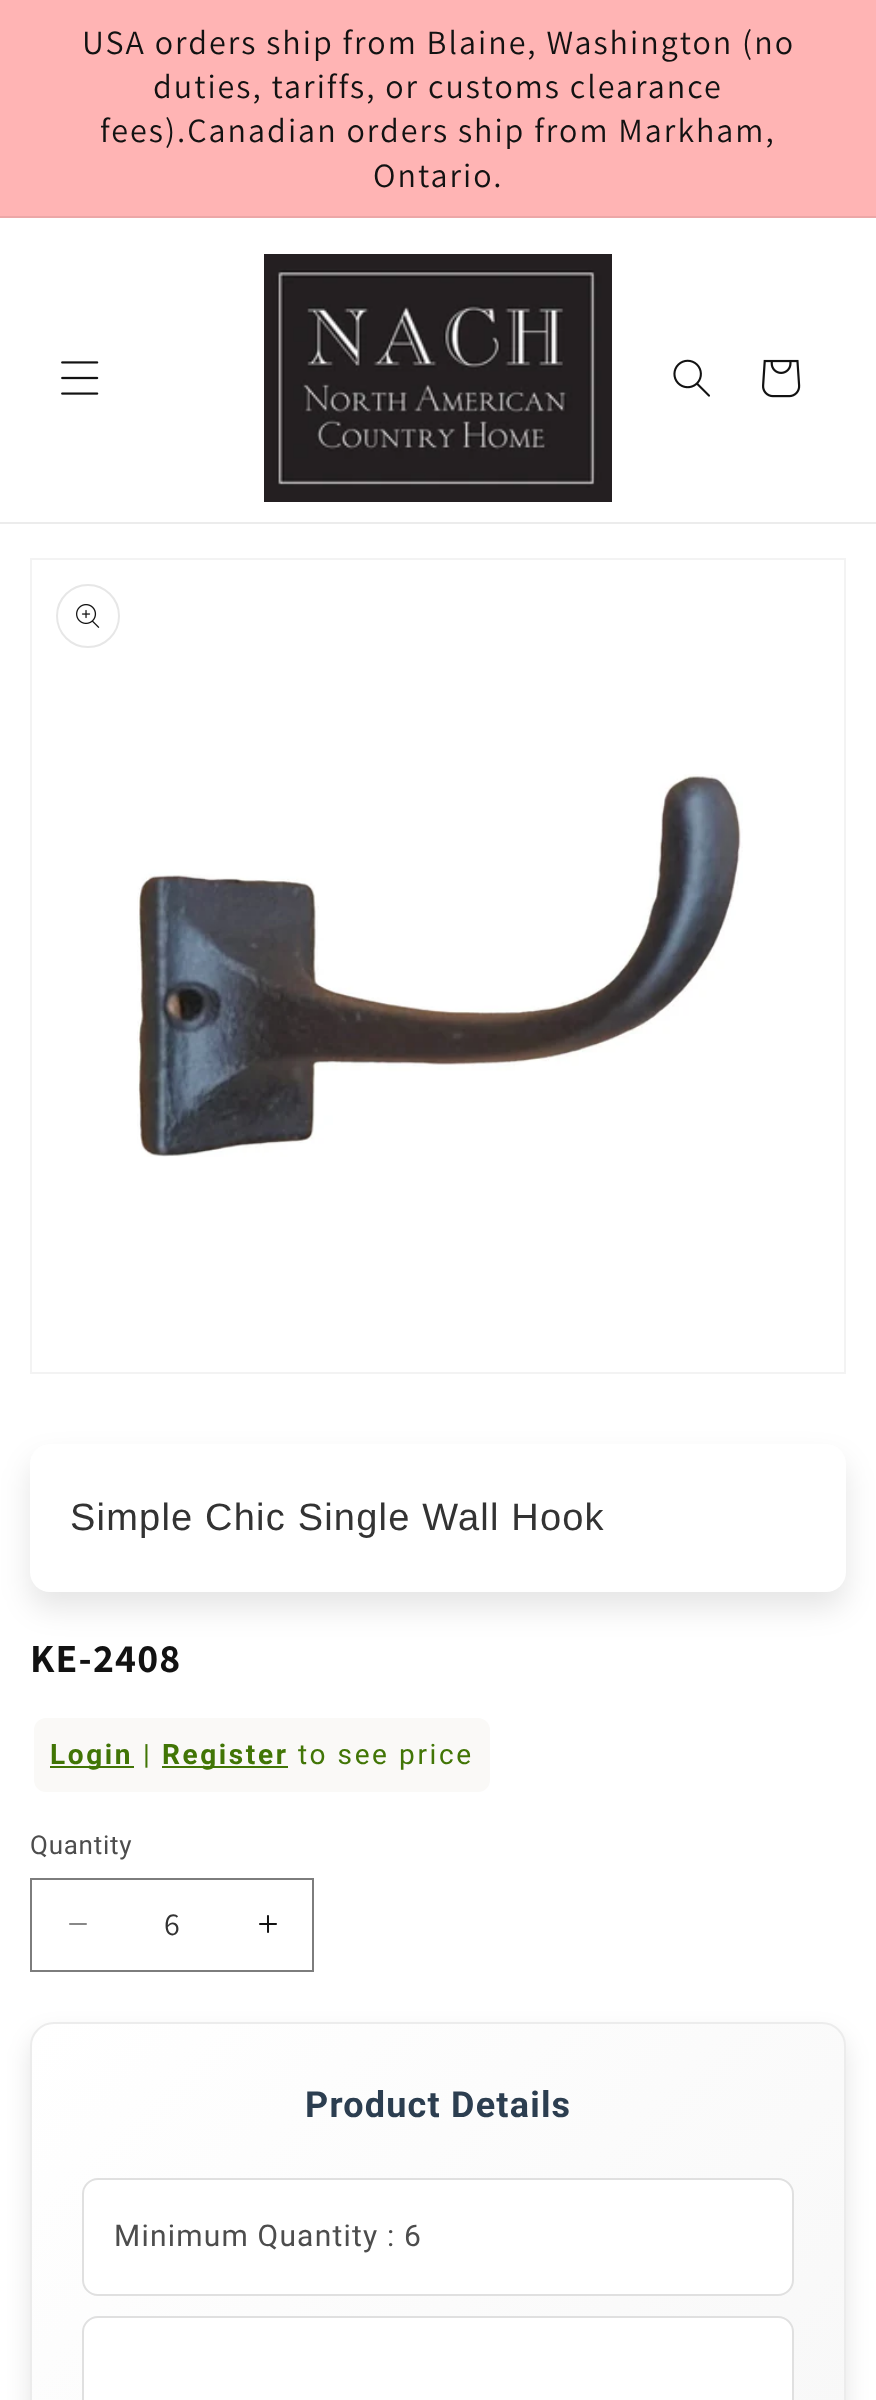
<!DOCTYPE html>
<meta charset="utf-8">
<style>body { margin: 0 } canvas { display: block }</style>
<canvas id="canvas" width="876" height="2400"></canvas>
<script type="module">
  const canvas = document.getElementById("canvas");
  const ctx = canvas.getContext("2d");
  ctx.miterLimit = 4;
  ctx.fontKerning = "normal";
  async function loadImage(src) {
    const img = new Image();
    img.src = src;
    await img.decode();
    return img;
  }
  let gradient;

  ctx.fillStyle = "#ffffff";
  ctx.fillRect(0, 0, 876, 2400);
  ctx.fillStyle = "#ffb4b4";
  ctx.fillRect(0, 0, 876, 216);
  ctx.fillStyle = "#eca7a7";
  ctx.fillRect(0, 216, 876, 2);
  ctx.letterSpacing = "2px";
  ctx.font = "34px Assistant";
  ctx.fillStyle = "#121212";
  ctx.fillText("USA orders ship from Blaine, Washington (no", 82, 54);
  ctx.fillText("duties, tariffs, or customs clearance", 153, 98);
  ctx.fillText("fees).Canadian orders ship from Markham,", 100, 142);
  ctx.fillText("Ontario.", 373, 187);
  ctx.fillStyle = "#ececec";
  ctx.fillRect(0, 522, 876, 2);
  ctx.drawImage(await loadImage("img1.png"), 61, 361, 38, 34);
  ctx.drawImage(await loadImage("img2.png"), 264, 254, 348, 248);
  ctx.drawImage(await loadImage("img3.png"), 673, 359, 37, 38);
  ctx.drawImage(await loadImage("img4.png"), 762, 359, 39, 39);
  ctx.strokeStyle = "#f3f3f3";
  ctx.lineWidth = 2;
  ctx.strokeRect(31, 559, 814, 814);
  ctx.beginPath();
  ctx.arc(88, 616, 31, 0, Math.PI * 2);
  ctx.strokeStyle = "#e7e7e7";
  ctx.stroke();
  ctx.drawImage(await loadImage("img5.png"), 76, 604, 24, 24);
  ctx.drawImage(await loadImage("img6.png"), 137, 774, 606, 383);
  ctx.fillStyle = "rgba(0, 0, 0, 0.1)";
  ctx.filter = "blur(15px)";
  ctx.beginPath();
  ctx.roundRect(30, 1460, 816, 148, 20);
  ctx.fill();
  ctx.filter = "none";
  ctx.fillStyle = "#ffffff";
  ctx.beginPath();
  ctx.roundRect(30, 1444, 816, 148, 20);
  ctx.fill();
  ctx.letterSpacing = "1.2px";
  ctx.font = "38px Liberation Sans";
  ctx.fillStyle = "#333333";
  ctx.fillText("Simple Chic Single Wall Hook", 70, 1530);
  ctx.font = "bold 40px Assistant";
  ctx.fillStyle = "#121212";
  ctx.fillText("KE-2408", 30, 1672);
  ctx.fillStyle = "#faf9f7";
  ctx.beginPath();
  ctx.roundRect(32, 1716, 460, 78, 14);
  ctx.fill();
  ctx.strokeStyle = "#ffffff";
  ctx.lineWidth = 4;
  ctx.stroke();
  ctx.fillStyle = "#417505";
  ctx.fillRect(50, 1766, 84, 2);
  ctx.letterSpacing = "2.6px";
  ctx.font = "bold 28px Roboto";
  ctx.fillText("Login", 50, 1764);
  ctx.font = "28px Roboto";
  ctx.fillText("|", 143, 1764);
  ctx.fillRect(162, 1766, 126, 2);
  ctx.font = "bold 28px Roboto";
  ctx.fillText("Register", 162, 1764);
  ctx.font = "28px Roboto";
  ctx.fillText("to see price", 298, 1764);
  ctx.letterSpacing = "0.75px";
  ctx.font = "26px Roboto";
  ctx.fillStyle = "#4d4d4d";
  ctx.fillText("Quantity", 30, 1854);
  ctx.drawImage(await loadImage("img7.png"), 69, 1923, 18, 2);
  ctx.drawImage(await loadImage("img8.png"), 259, 1915, 18, 18);
  ctx.strokeStyle = "#7d7d7d";
  ctx.lineWidth = 2;
  ctx.strokeRect(31, 1879, 282, 92);
  ctx.letterSpacing = "0px";
  ctx.font = "32px Assistant";
  ctx.fillStyle = "#333333";
  ctx.fillText("6", 164, 1935);
  ctx.fillStyle = "rgba(0, 0, 0, 0.1)";
  ctx.filter = "blur(12px)";
  ctx.beginPath();
  ctx.roundRect(30, 2034, 816, 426, 24);
  ctx.fill();
  ctx.filter = "none";
  ctx.save();
  ctx.beginPath();
  ctx.roundRect(30, 2022, 816, 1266, 24);
  ctx.clip();
  gradient = ctx.createLinearGradient(-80, 2137, 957, 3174);
  gradient.addColorStop(0, "#ffffff");
  gradient.addColorStop(1, "#f3f3f3");
  ctx.fillStyle = gradient;
  ctx.fillRect(32, 2024, 812, 376);
  ctx.restore();
  ctx.beginPath();
  ctx.roundRect(31, 2023, 814, 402, 23);
  ctx.strokeStyle = "#ececec";
  ctx.stroke();
  ctx.letterSpacing = "1.2px";
  ctx.font = "bold 36px Roboto";
  ctx.fillStyle = "#2c3e50";
  ctx.fillText("Product Details", 305, 2117);
  ctx.fillStyle = "#ffffff";
  ctx.beginPath();
  ctx.roundRect(83, 2179, 710, 116, 15);
  ctx.fill();
  ctx.strokeStyle = "#e0e0e0";
  ctx.stroke();
  ctx.font = "30px Roboto";
  ctx.fillStyle = "#4d4d4d";
  ctx.fillText("Minimum Quantity : 6", 114, 2246);
  ctx.fillStyle = "#ffffff";
  ctx.beginPath();
  ctx.roundRect(83, 2317, 710, 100, 15);
  ctx.fill();
  ctx.stroke();
</script>
